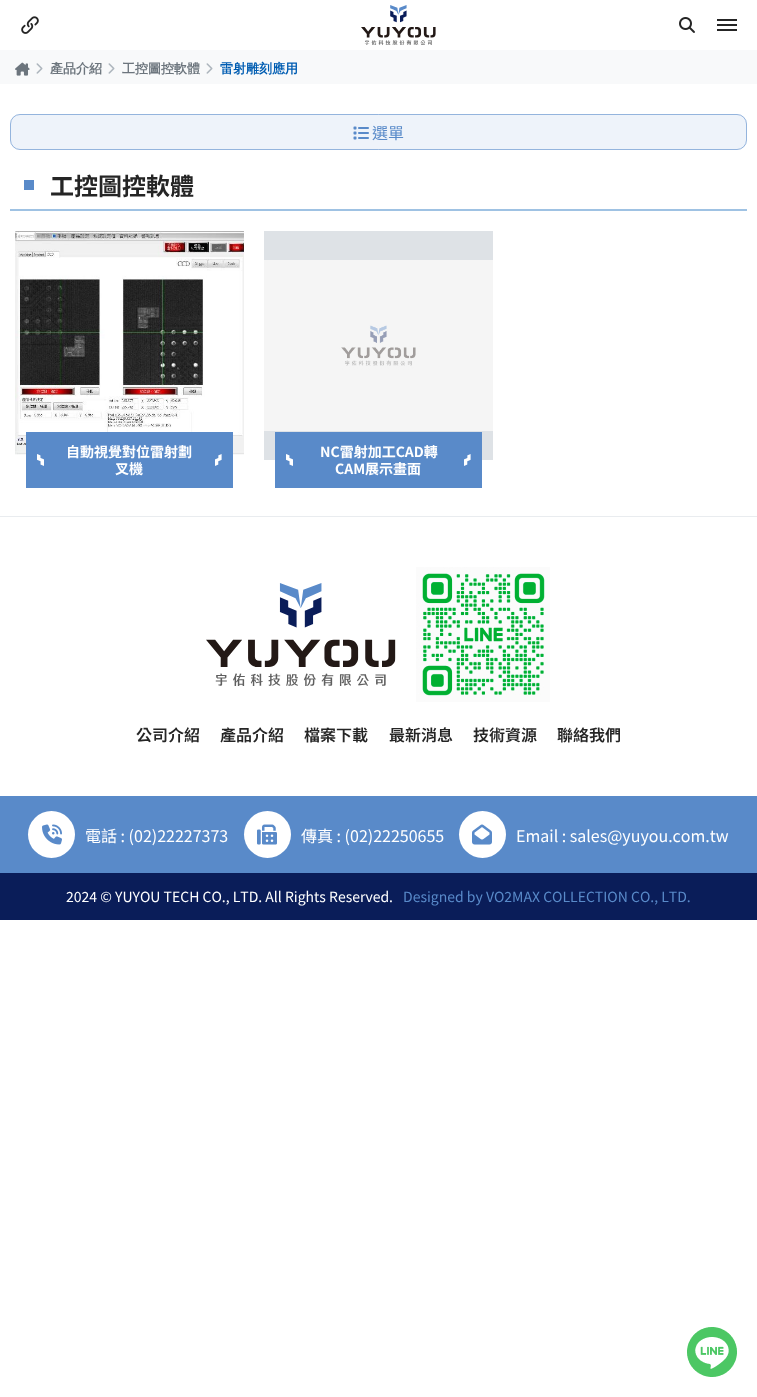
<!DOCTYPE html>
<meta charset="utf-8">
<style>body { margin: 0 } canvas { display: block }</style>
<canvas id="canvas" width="757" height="1397"></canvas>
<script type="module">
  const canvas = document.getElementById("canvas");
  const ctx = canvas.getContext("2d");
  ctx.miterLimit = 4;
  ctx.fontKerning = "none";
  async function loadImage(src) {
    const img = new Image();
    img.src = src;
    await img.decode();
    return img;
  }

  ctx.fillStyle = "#ffffff";
  ctx.fillRect(0, 0, 757, 1397);
  ctx.drawImage(await loadImage("img1.png"), 21, 16, 18, 18);
  ctx.drawImage(await loadImage("img2.png"), 361, 5, 75, 40);
  ctx.drawImage(await loadImage("img3.png"), 679, 17, 16, 16);
  ctx.fillStyle = "#252525";
  ctx.fillRect(717, 19, 20, 2);
  ctx.fillRect(717, 24, 20, 2);
  ctx.fillRect(717, 29, 20, 2);
  ctx.fillStyle = "#f8f9fa";
  ctx.fillRect(0, 50, 757, 34);
  ctx.drawImage(await loadImage("img4.png"), 15, 62, 15, 14);
  ctx.drawImage(await loadImage("img5.png"), 36, 63, 7, 11);
  ctx.font = "bold 13px WenQuanYi Zen Hei";
  ctx.fillStyle = "#6c757d";
  ctx.fillText("產品介紹", 50, 73);
  ctx.drawImage(await loadImage("img5.png"), 108, 63, 7, 11);
  ctx.fillText("工控圖控軟體", 122, 73);
  ctx.drawImage(await loadImage("img5.png"), 206, 63, 7, 11);
  ctx.fillStyle = "#005db2";
  ctx.fillText("雷射雕刻應用", 220, 73);
  ctx.fillStyle = "#eef3fa";
  ctx.beginPath();
  ctx.roundRect(10, 114, 737, 36, 10);
  ctx.fill();
  ctx.beginPath();
  ctx.roundRect(10.5, 114.5, 736, 35, 9.5);
  ctx.strokeStyle = "rgba(89, 138, 201, 0.6)";
  ctx.stroke();
  ctx.drawImage(await loadImage("img6.png"), 353, 126, 16, 14);
  ctx.font = "16px Noto Sans TC";
  ctx.fillStyle = "#598ac9";
  ctx.fillText("選單", 372, 139);
  ctx.fillStyle = "#9fc2e3";
  ctx.fillRect(10, 209, 737, 2);
  ctx.fillStyle = "#598ac9";
  ctx.fillRect(24, 180, 10, 10);
  ctx.font = "bold 24px Noto Sans TC";
  ctx.fillStyle = "#252525";
  ctx.fillText("工控圖控軟體", 50, 195);
  ctx.drawImage(await loadImage("img7.png"), 15, 231, 229, 229);
  ctx.fillStyle = "#598ac9";
  ctx.fillRect(26, 432, 207, 56);
  ctx.drawImage(await loadImage("img8.png"), 37, 454, 7, 12);
  ctx.font = "bold 14px Noto Sans TC";
  ctx.fillStyle = "#ffffff";
  ctx.fillText("自動視覺對位雷射劃", 66, 457);
  ctx.fillText("叉機", 115, 474);
  ctx.drawImage(await loadImage("img9.png"), 215, 454, 7, 12);
  ctx.fillStyle = "#dee2e6";
  ctx.fillRect(264, 231, 229, 229);
  ctx.drawImage(await loadImage("img10.png"), 264, 260, 229, 171);
  ctx.fillStyle = "#598ac9";
  ctx.fillRect(275, 432, 207, 56);
  ctx.drawImage(await loadImage("img8.png"), 286, 454, 7, 12);
  ctx.fillStyle = "#ffffff";
  ctx.fillText("NC雷射加工CAD轉", 320, 457);
  ctx.fillText("CAM展示畫面", 335, 474);
  ctx.drawImage(await loadImage("img9.png"), 464, 454, 7, 12);
  ctx.fillStyle = "#e9ecef";
  ctx.fillRect(0, 516, 757, 1);
  ctx.drawImage(await loadImage("img11.png"), 206, 583, 190, 103);
  ctx.drawImage(await loadImage("img12.png"), 416, 567, 134, 135);
  ctx.font = "600 16px Noto Sans TC";
  ctx.fillStyle = "#252525";
  ctx.fillText("公司介紹", 136, 741);
  ctx.fillText("產品介紹", 220, 741);
  ctx.fillText("檔案下載", 304, 741);
  ctx.fillText("最新消息", 389, 741);
  ctx.fillText("技術資源", 473, 741);
  ctx.fillText("聯絡我們", 557, 741);
  ctx.fillStyle = "#598ac9";
  ctx.fillRect(0, 796, 757, 77);
  ctx.fillStyle = "#ffffff";
  ctx.beginPath();
  ctx.arc(51.5, 834.5, 23.5, 0, Math.PI * 2);
  ctx.fill();
  ctx.drawImage(await loadImage("img13.png"), 42, 824, 20, 21);
  ctx.font = "16px Noto Sans TC";
  ctx.fillText("電話 : (02)22227373", 85, 842);
  ctx.beginPath();
  ctx.arc(267.5, 834.5, 23.5, 0, Math.PI * 2);
  ctx.fill();
  ctx.drawImage(await loadImage("img14.png"), 257, 824, 20, 21);
  ctx.fillText("傳真 : (02)22250655", 301, 842);
  ctx.beginPath();
  ctx.arc(482.5, 834.5, 23.5, 0, Math.PI * 2);
  ctx.fill();
  ctx.drawImage(await loadImage("img15.png"), 472, 824, 20, 21);
  ctx.fillText("Email : sales@yuyou.com.tw", 516, 842);
  ctx.fillStyle = "#0a1d59";
  ctx.fillRect(0, 873, 757, 47);
  ctx.font = "14px Noto Sans TC";
  ctx.fillStyle = "#ffffff";
  ctx.fillText("2024 © YUYOU TECH CO., LTD. All Rights", 66, 902);
  ctx.fillText("Reserved.", 329, 902);
  ctx.fillStyle = "#598ac9";
  ctx.fillText("Designed by VO2MAX COLLECTION CO., LTD.", 403, 902);
  ctx.drawImage(await loadImage("img16.png"), 687, 1327, 50, 50);
</script>
